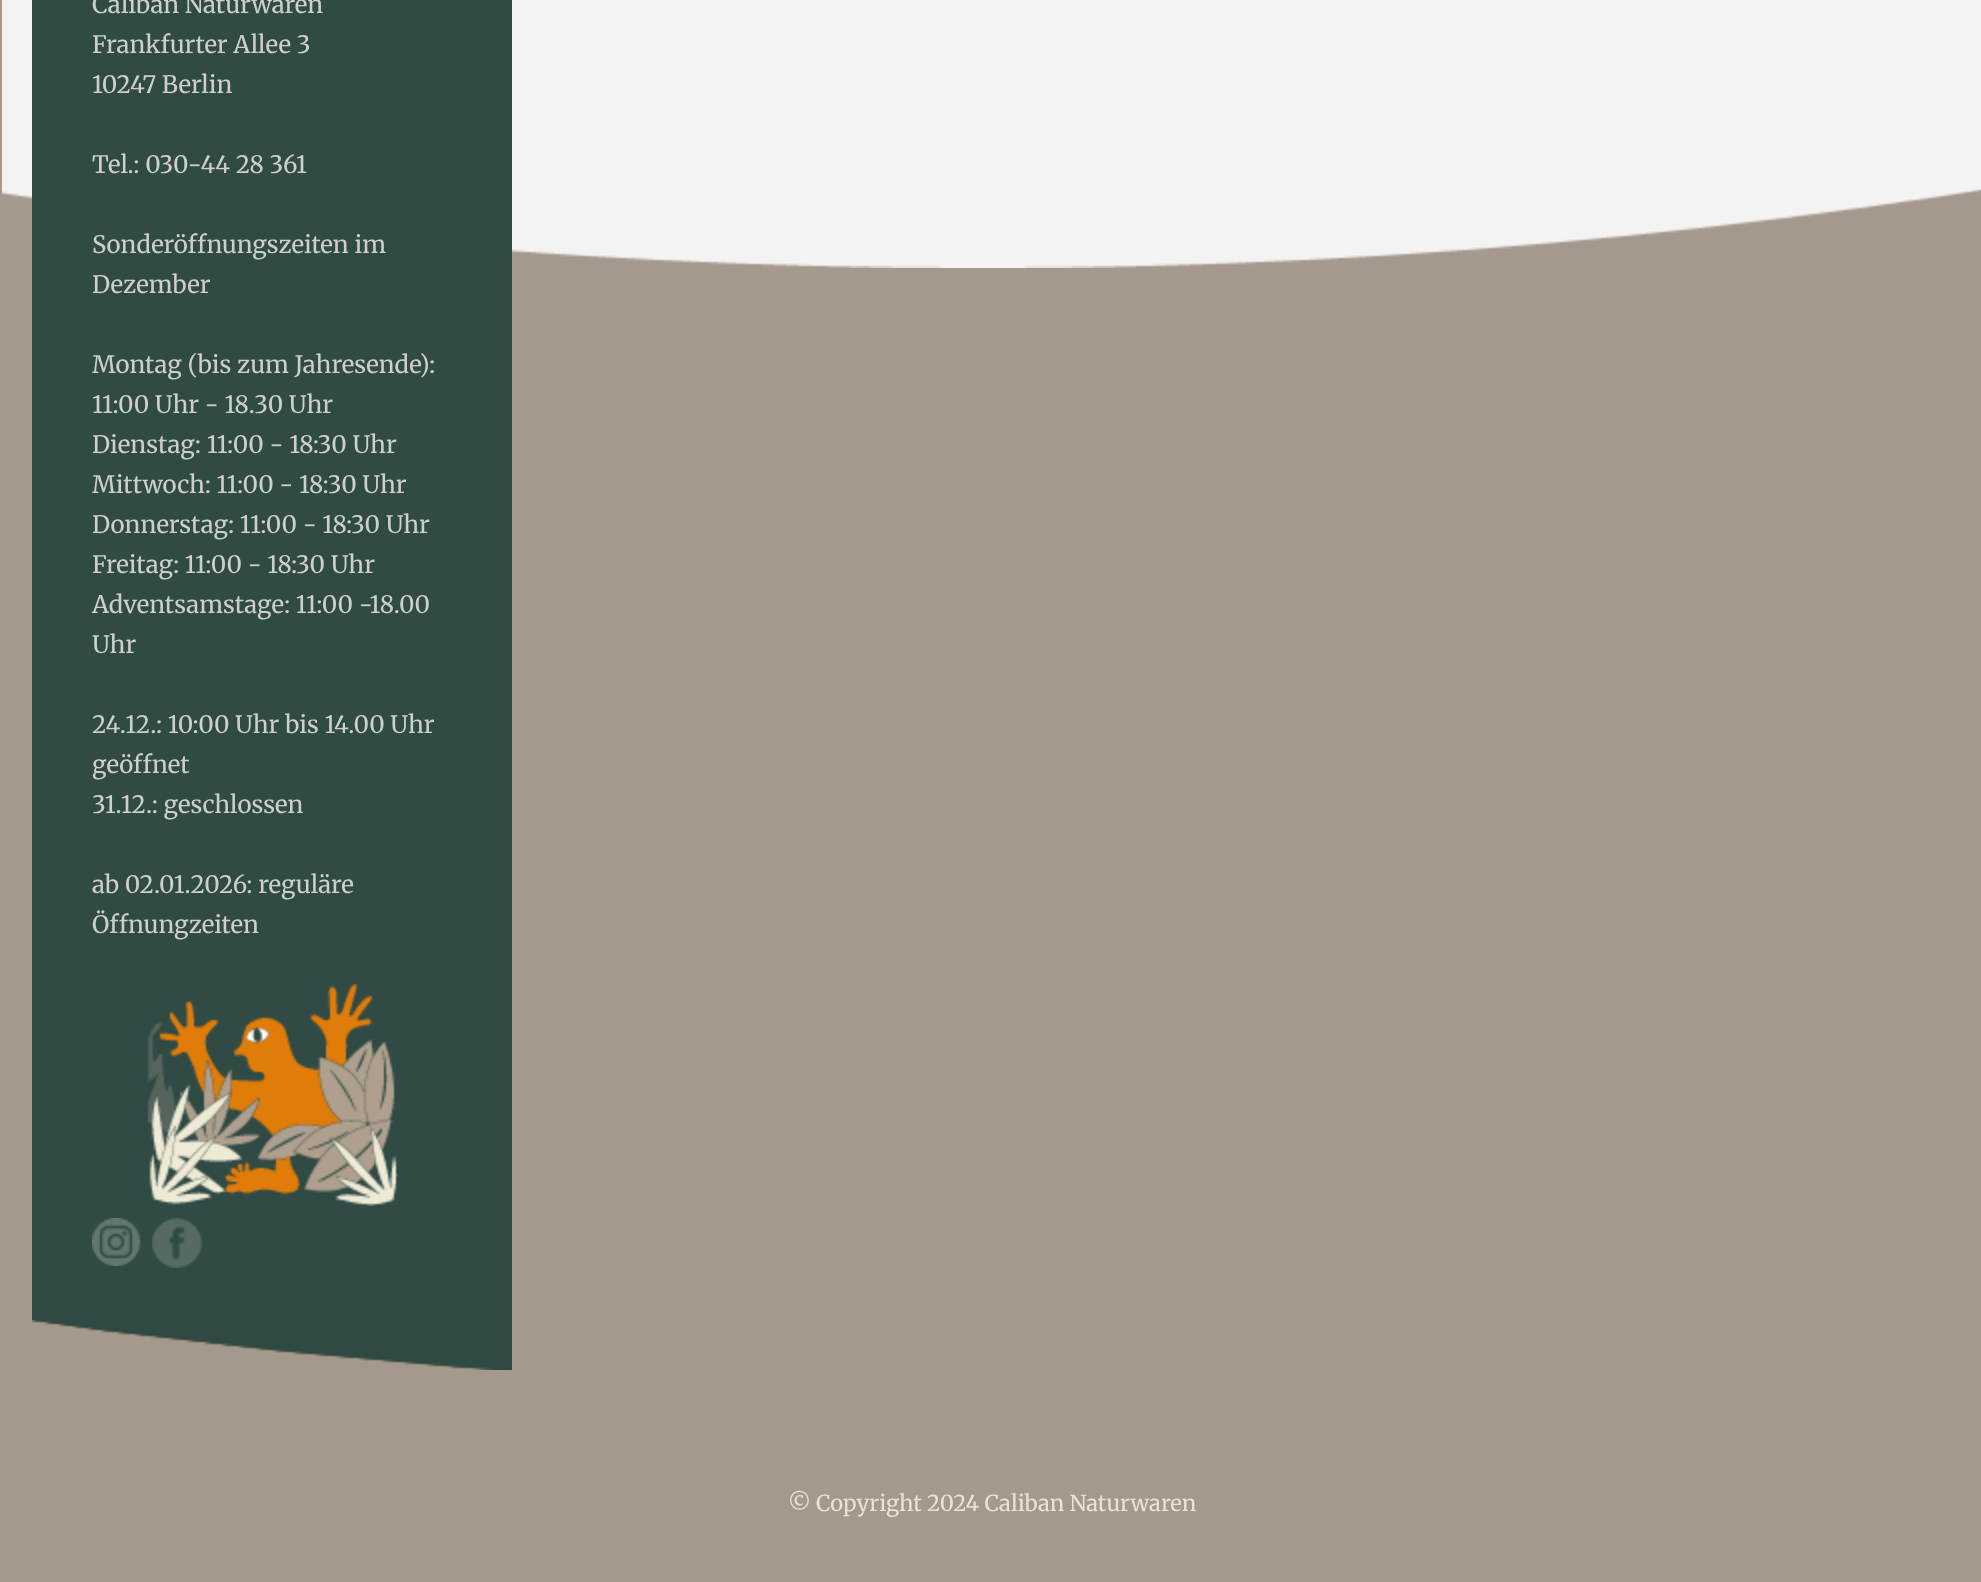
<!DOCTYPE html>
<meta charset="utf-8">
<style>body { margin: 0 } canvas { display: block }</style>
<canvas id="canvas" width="1981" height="1582"></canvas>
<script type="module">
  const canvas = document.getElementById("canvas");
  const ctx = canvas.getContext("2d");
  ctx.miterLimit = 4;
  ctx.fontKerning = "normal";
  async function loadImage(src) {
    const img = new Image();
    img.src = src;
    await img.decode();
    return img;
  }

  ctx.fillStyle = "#a5998d";
  ctx.fillRect(0, 0, 1981, 1582);
  ctx.drawImage(await loadImage("img1.png"), 2, 0, 1979, 268);
  ctx.fillStyle = "#304a45";
  ctx.fillRect(32, 0, 480, 1320);
  ctx.font = "300 24px Merriweather";
  ctx.fillStyle = "#cecece";
  ctx.fillText("Caliban Naturwaren", 92, 13);
  ctx.fillText("Frankfurter Allee 3", 92, 53);
  ctx.fillText("10247 Berlin", 92, 93);
  ctx.fillText("Tel.: 030-44 28 361", 92, 173);
  ctx.fillText("Sonderöffnungszeiten im", 92, 253);
  ctx.fillText("Dezember", 92, 293);
  ctx.fillText("Montag (bis zum Jahresende):", 92, 373);
  ctx.fillText("11:00 Uhr - 18.30 Uhr", 92, 413);
  ctx.fillText("Dienstag: 11:00 - 18:30 Uhr", 92, 453);
  ctx.fillText("Mittwoch: 11:00 - 18:30 Uhr", 92, 493);
  ctx.fillText("Donnerstag: 11:00 - 18:30 Uhr", 92, 533);
  ctx.fillText("Freitag: 11:00 - 18:30 Uhr", 92, 573);
  ctx.fillText("Adventsamstage: 11:00 -18.00", 92, 613);
  ctx.fillText("Uhr", 92, 653);
  ctx.fillText("24.12.: 10:00 Uhr bis 14.00 Uhr", 92, 733);
  ctx.fillText("geöffnet", 92, 773);
  ctx.fillText("31.12.: geschlossen", 92, 813);
  ctx.fillText("ab 02.01.2026: reguläre", 92, 893);
  ctx.fillText("Öffnungzeiten", 92, 933);
  ctx.drawImage(await loadImage("img2.png"), 147, 984, 251, 222);
  ctx.drawImage(await loadImage("img3.png"), 92, 1218, 49, 48);
  ctx.drawImage(await loadImage("img4.png"), 152, 1218, 50, 50);
  ctx.drawImage(await loadImage("img5.png"), 32, 1320, 480, 50);
  ctx.font = "300 22px Merriweather";
  ctx.fillStyle = "#e9e3cf";
  ctx.fillText("© Copyright 2024 Caliban Naturwaren", 788, 1511);
</script>
